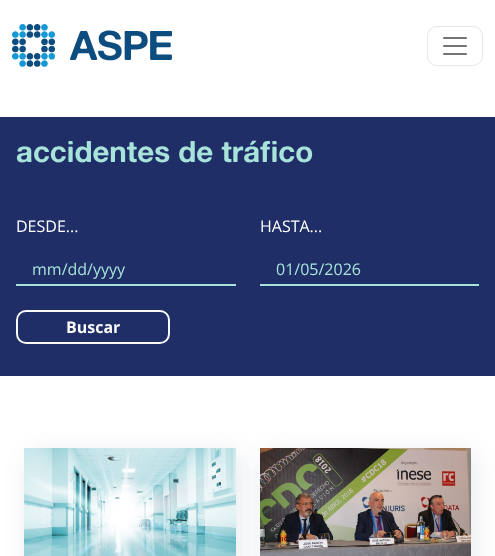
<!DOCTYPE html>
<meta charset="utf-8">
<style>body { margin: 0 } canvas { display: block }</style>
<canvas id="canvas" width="495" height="556"></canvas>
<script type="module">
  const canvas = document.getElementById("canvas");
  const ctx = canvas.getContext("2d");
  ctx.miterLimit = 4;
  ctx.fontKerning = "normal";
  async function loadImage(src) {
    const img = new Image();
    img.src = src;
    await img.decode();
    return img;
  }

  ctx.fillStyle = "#ffffff";
  ctx.fillRect(0, 0, 495, 556);
  ctx.drawImage(await loadImage("img1.png"), 12, 24, 160, 43);
  ctx.beginPath();
  ctx.roundRect(427.5, 26.5, 55, 39, 9.5);
  ctx.strokeStyle = "#e6e6e6";
  ctx.stroke();
  ctx.drawImage(await loadImage("img2.png"), 443, 37, 24, 18);
  ctx.fillStyle = "#1f2e66";
  ctx.fillRect(0, 117, 495, 259);
  ctx.font = "bold 29.5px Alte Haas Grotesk";
  ctx.fillStyle = "#a7e3da";
  ctx.fillText("accidentes de tráfico", 16, 162);
  ctx.font = "16px Open Sans";
  ctx.fillStyle = "#ffffff";
  ctx.fillText("DESDE...", 16, 232);
  ctx.fillStyle = "#a7e3da";
  ctx.fillRect(16, 284, 220, 2);
  ctx.fillText("mm/dd/yyyy", 32, 275);
  ctx.fillStyle = "#ffffff";
  ctx.fillText("HASTA...", 260, 232);
  ctx.fillStyle = "#a7e3da";
  ctx.fillRect(260, 284, 219, 2);
  ctx.fillText("01/05/2026", 276, 275);
  ctx.beginPath();
  ctx.roundRect(17, 311, 152, 32, 9);
  ctx.strokeStyle = "#f8f9fa";
  ctx.lineWidth = 2;
  ctx.stroke();
  ctx.font = "bold 16px Open Sans";
  ctx.fillStyle = "#f8f9fa";
  ctx.fillText("Buscar", 66, 333);
  ctx.fillStyle = "rgba(31, 46, 102, 0.1)";
  ctx.filter = "blur(12.5px)";
  ctx.beginPath();
  ctx.roundRect(28, 452, 212, 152, 10);
  ctx.fill();
  ctx.filter = "none";
  ctx.drawImage(await loadImage("img3.png"), 24, 448, 212, 108);
  ctx.filter = "blur(12.5px)";
  ctx.beginPath();
  ctx.roundRect(264, 452, 211, 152, 10);
  ctx.fill();
  ctx.filter = "none";
  ctx.drawImage(await loadImage("img4.png"), 260, 448, 211, 108);
</script>
